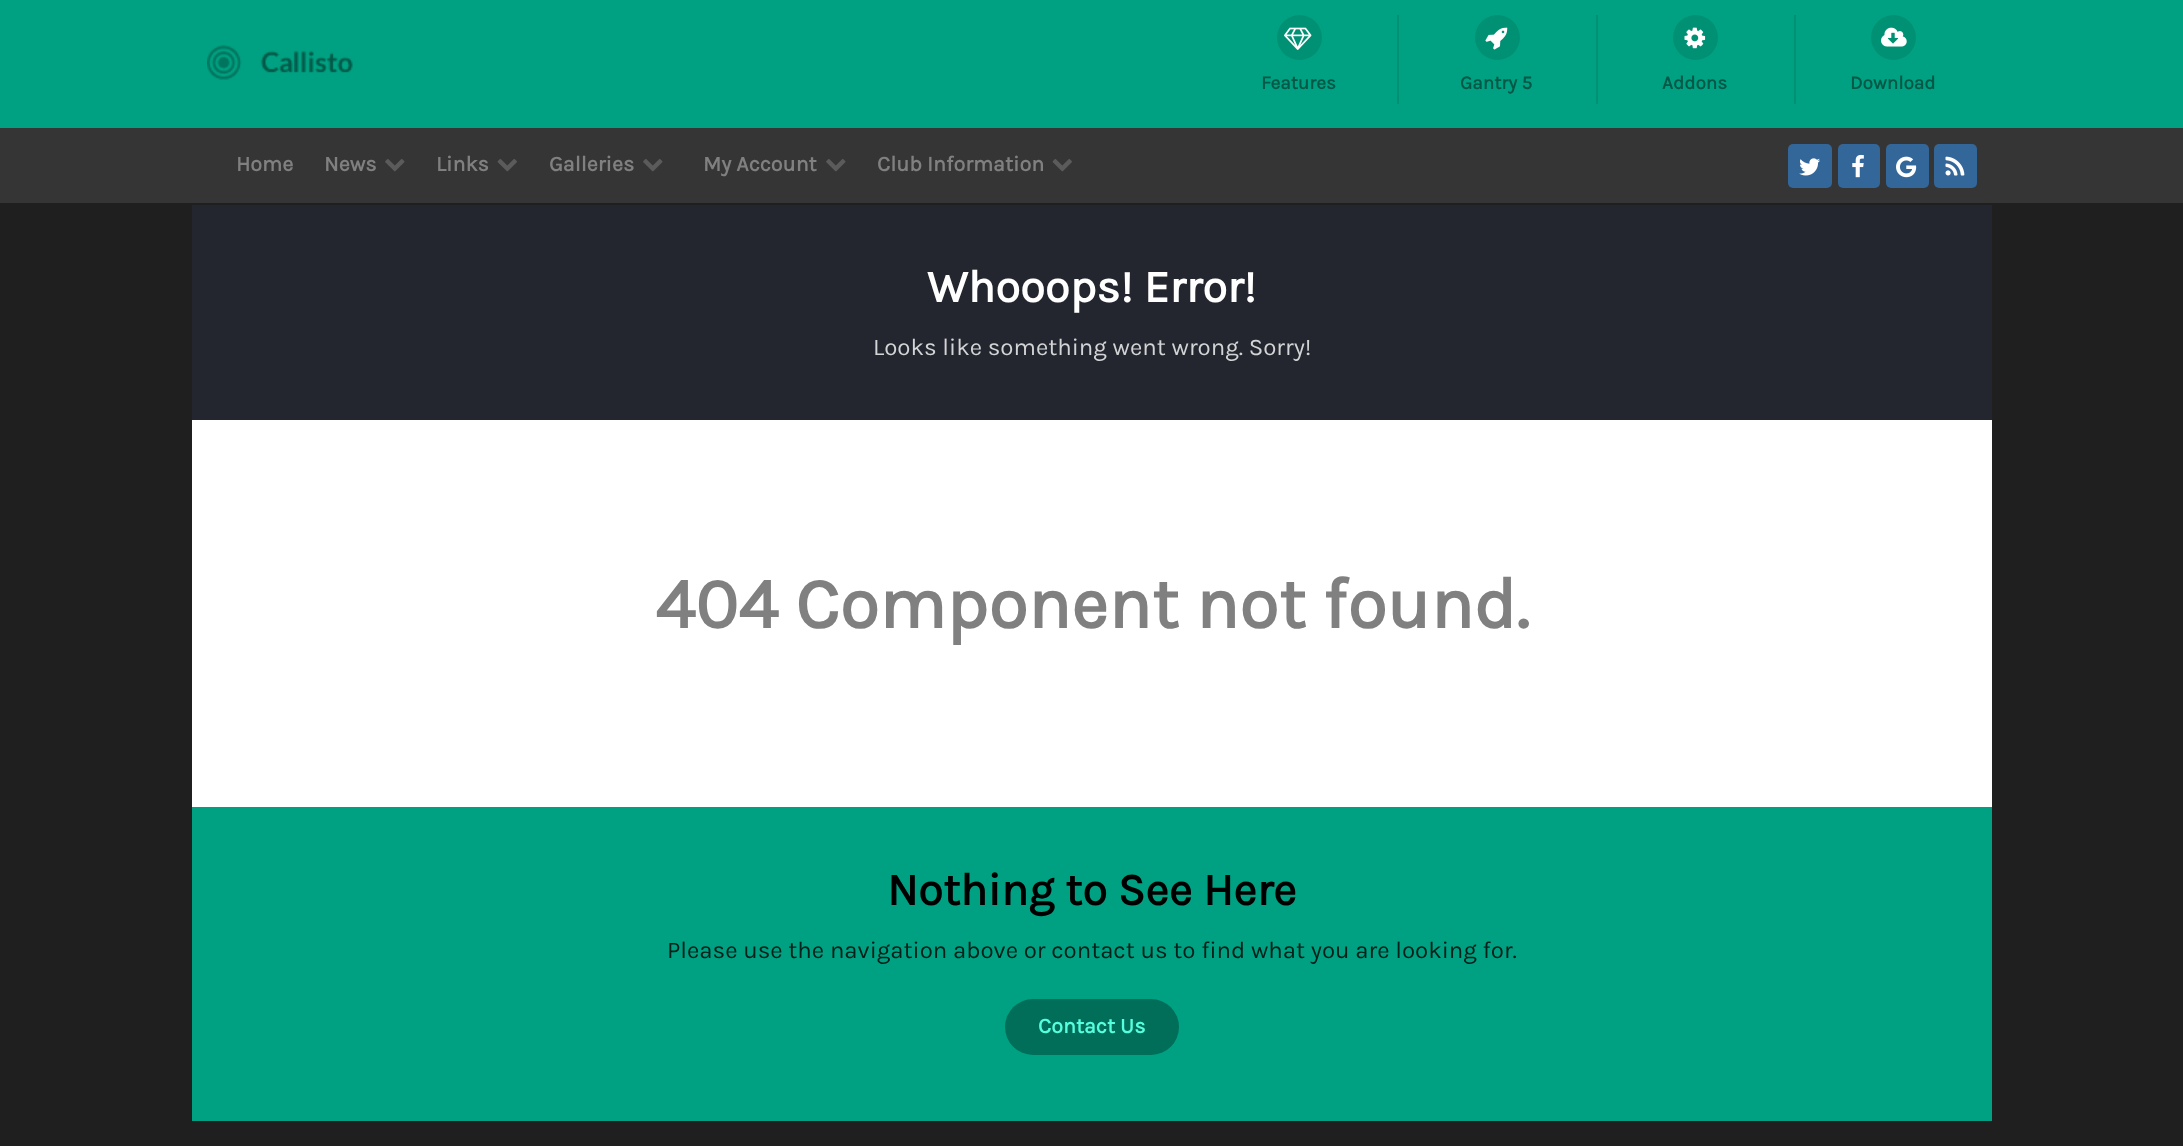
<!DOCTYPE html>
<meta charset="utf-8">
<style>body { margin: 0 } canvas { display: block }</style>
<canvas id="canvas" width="2183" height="1146"></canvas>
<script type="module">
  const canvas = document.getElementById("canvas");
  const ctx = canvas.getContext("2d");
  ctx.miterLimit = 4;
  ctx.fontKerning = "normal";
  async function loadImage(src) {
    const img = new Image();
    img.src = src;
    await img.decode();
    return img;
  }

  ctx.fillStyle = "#1f1f1f";
  ctx.fillRect(0, 0, 2183, 1146);
  ctx.fillStyle = "#00a182";
  ctx.fillRect(0, 0, 2183, 128);
  ctx.drawImage(await loadImage("img1.png"), 207, 45, 146, 35);
  ctx.fillStyle = "#009175";
  ctx.fillRect(1397, 15, 2, 89);
  ctx.beginPath();
  ctx.arc(1299.5, 37.5, 22.5, 0, Math.PI * 2);
  ctx.fill();
  ctx.drawImage(await loadImage("img2.png"), 1284, 27, 28, 23);
  ctx.font = "bold 19px Karla";
  ctx.fillStyle = "#005847";
  ctx.fillText("Features", 1261, 89);
  ctx.fillStyle = "#009175";
  ctx.fillRect(1596, 15, 2, 89);
  ctx.beginPath();
  ctx.arc(1497.5, 37.5, 22.5, 0, Math.PI * 2);
  ctx.fill();
  ctx.drawImage(await loadImage("img3.png"), 1485, 27, 23, 23);
  ctx.fillStyle = "#005847";
  ctx.fillText("Gantry 5", 1460, 89);
  ctx.fillStyle = "#009175";
  ctx.fillRect(1794, 15, 2, 89);
  ctx.beginPath();
  ctx.arc(1695.5, 37.5, 22.5, 0, Math.PI * 2);
  ctx.fill();
  ctx.drawImage(await loadImage("img4.png"), 1684, 27, 22, 22);
  ctx.fillStyle = "#005847";
  ctx.fillText("Addons", 1662, 89);
  ctx.fillStyle = "#009175";
  ctx.beginPath();
  ctx.arc(1893.5, 37.5, 22.5, 0, Math.PI * 2);
  ctx.fill();
  ctx.drawImage(await loadImage("img5.png"), 1881, 27, 26, 20);
  ctx.fillStyle = "#005847";
  ctx.fillText("Download", 1850, 89);
  ctx.fillStyle = "#353535";
  ctx.fillRect(0, 128, 2183, 75);
  ctx.font = "bold 21.5px Karla";
  ctx.fillStyle = "#808080";
  ctx.fillText("Home", 236, 171);
  ctx.fillText("News", 324, 171);
  ctx.drawImage(await loadImage("img6.png"), 385, 159, 20, 13);
  ctx.fillText("Links", 436, 171);
  ctx.drawImage(await loadImage("img7.png"), 497, 159, 20, 13);
  ctx.fillText("Galleries", 549, 171);
  ctx.drawImage(await loadImage("img6.png"), 643, 159, 20, 13);
  ctx.fillText("My Account", 703, 171);
  ctx.drawImage(await loadImage("img6.png"), 826, 159, 20, 13);
  ctx.fillText("Club Information", 877, 171);
  ctx.drawImage(await loadImage("img7.png"), 1052, 159, 20, 13);
  ctx.fillStyle = "#336699";
  ctx.beginPath();
  ctx.roundRect(1788, 144, 44, 44, 5);
  ctx.fill();
  ctx.drawImage(await loadImage("img8.png"), 1799, 158, 21, 18);
  ctx.beginPath();
  ctx.roundRect(1838, 144, 42, 44, 5);
  ctx.fill();
  ctx.drawImage(await loadImage("img9.png"), 1852, 154, 12, 24);
  ctx.beginPath();
  ctx.roundRect(1886, 144, 43, 44, 5);
  ctx.fill();
  ctx.drawImage(await loadImage("img10.png"), 1896, 156, 21, 22);
  ctx.beginPath();
  ctx.roundRect(1934, 144, 43, 44, 5);
  ctx.fill();
  ctx.drawImage(await loadImage("img11.png"), 1945, 156, 20, 20);
  ctx.fillStyle = "#23262f";
  ctx.fillRect(192, 205, 1800, 215);
  ctx.font = "bold 45.5px Karla";
  ctx.fillStyle = "#ffffff";
  ctx.fillText("Whooops! Error!", 927, 302);
  ctx.font = "24px Karla";
  ctx.fillStyle = "#d3d4d5";
  ctx.fillText("Looks like something went wrong. Sorry!", 873, 355);
  ctx.fillStyle = "#ffffff";
  ctx.fillRect(192, 420, 1800, 387);
  ctx.font = "bold 72px Karla";
  ctx.fillStyle = "#808080";
  ctx.fillText("404 Component not found.", 655, 628);
  ctx.fillStyle = "#00a182";
  ctx.fillRect(192, 807, 1800, 314);
  ctx.font = "bold 45.5px Karla";
  ctx.fillStyle = "#000000";
  ctx.fillText("Nothing to See Here", 887, 905);
  ctx.font = "24px Karla";
  ctx.fillStyle = "#00201a";
  ctx.fillText("Please use the navigation above or contact us to find what you are looking for.", 667, 958);
  ctx.fillStyle = "#006e59";
  ctx.beginPath();
  ctx.roundRect(1005, 999, 174, 56, 28);
  ctx.fill();
  ctx.font = "bold 21.5px Karla";
  ctx.fillStyle = "#55ffde";
  ctx.fillText("Contact Us", 1038, 1033);
</script>
